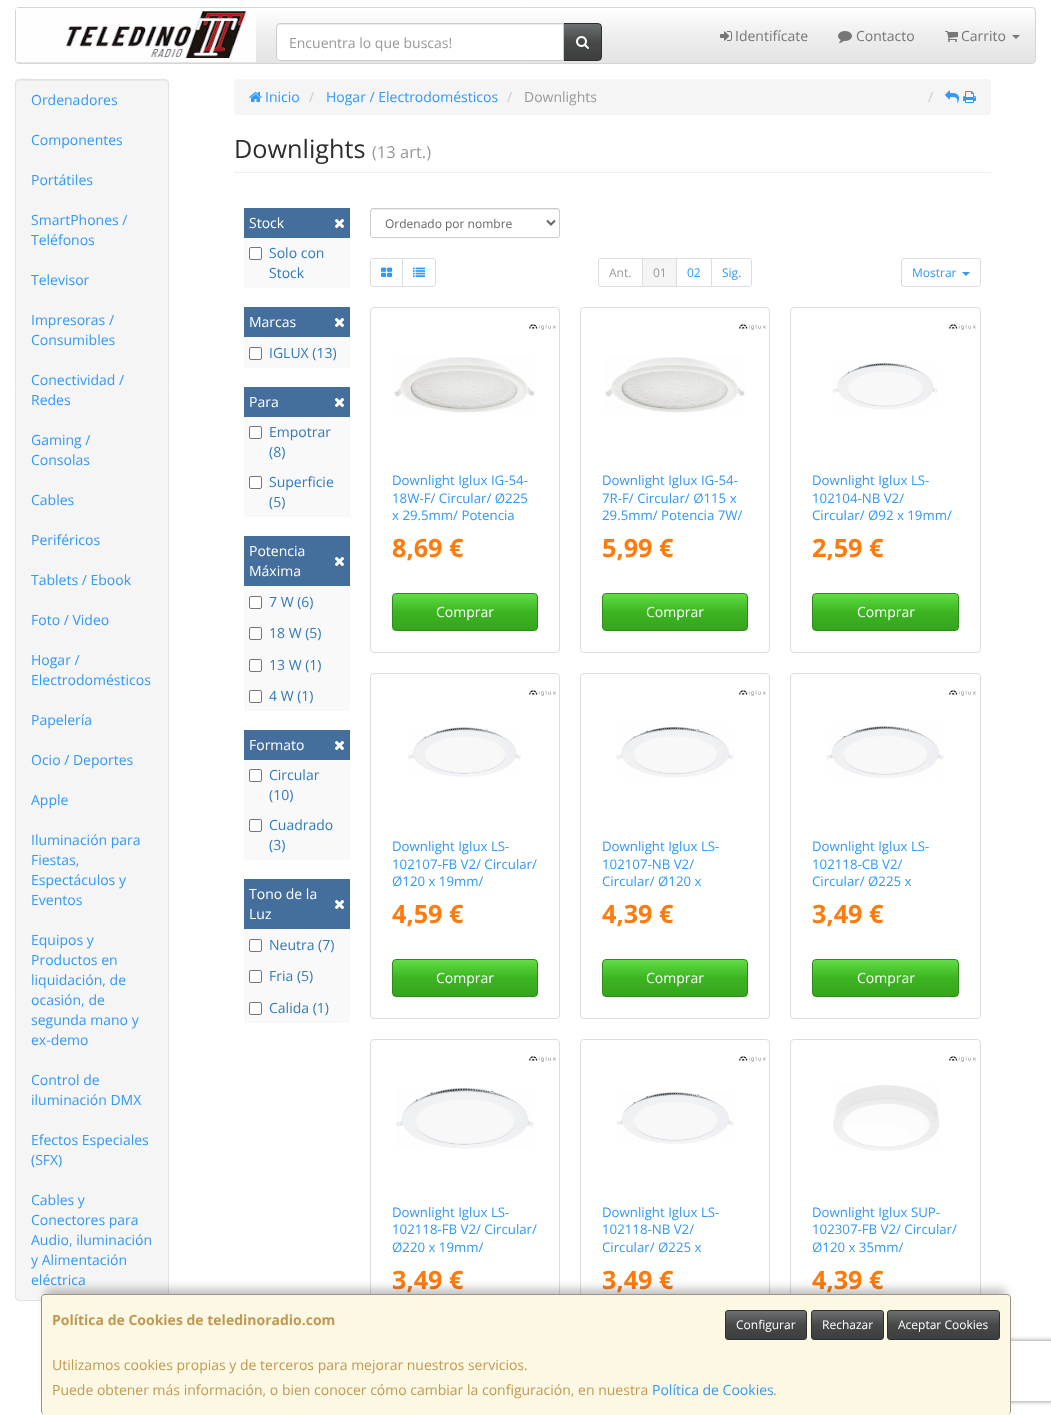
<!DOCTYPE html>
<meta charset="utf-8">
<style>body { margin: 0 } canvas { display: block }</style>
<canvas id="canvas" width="1051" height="1415"></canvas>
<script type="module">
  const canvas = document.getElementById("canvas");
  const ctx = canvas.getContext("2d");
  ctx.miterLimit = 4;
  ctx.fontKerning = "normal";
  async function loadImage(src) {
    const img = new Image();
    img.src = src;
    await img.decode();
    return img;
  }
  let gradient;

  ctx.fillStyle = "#ffffff";
  ctx.fillRect(0, 0, 1051, 1415);
  ctx.save();
  ctx.beginPath();
  ctx.roundRect(15, 7, 1021, 57, 4);
  ctx.clip();
  gradient = ctx.createLinearGradient(526, 8, 526, 63);
  gradient.addColorStop(0, "#ffffff");
  gradient.addColorStop(0.5, "#eeeeee");
  gradient.addColorStop(1, "#e4e4e4");
  ctx.fillStyle = gradient;
  ctx.fillRect(16, 8, 1019, 55);
  ctx.restore();
  ctx.beginPath();
  ctx.roundRect(15.5, 7.5, 1020, 56, 3.5);
  ctx.strokeStyle = "#d5d5d5";
  ctx.stroke();
  ctx.drawImage(await loadImage("img1.png"), 16, 8, 240, 54);
  gradient = ctx.createLinearGradient(583, 24, 583, 60);
  gradient.addColorStop(0, "#6d7070");
  gradient.addColorStop(0.5, "#474949");
  gradient.addColorStop(1, "#3d3f3f");
  ctx.fillStyle = gradient;
  ctx.fillRect(564, 24, 37, 36);
  ctx.beginPath();
  ctx.roundRect(563.5, 23.5, 38, 37, [0, 3.5, 3.5, 0]);
  ctx.strokeStyle = "#2e2f2f";
  ctx.stroke();
  ctx.fillStyle = "#ffffff";
  ctx.beginPath();
  ctx.roundRect(276, 23, 288, 38, [4, 0, 0, 4]);
  ctx.fill();
  ctx.fillStyle = "#ececec";
  ctx.beginPath();
  ctx.moveTo(280, 25);
  ctx.lineTo(563, 25);
  ctx.lineTo(563, 24);
  ctx.lineTo(280, 24);
  ctx.bezierCurveTo(278, 24, 277, 26, 277, 28);
  ctx.bezierCurveTo(277, 26, 278, 25, 280, 25);
  ctx.closePath();
  ctx.fill();
  ctx.beginPath();
  ctx.roundRect(276.5, 23.5, 287, 37, [3.5, 0, 0, 3.5]);
  ctx.strokeStyle = "#cccccc";
  ctx.stroke();
  ctx.font = "14px Open Sans";
  ctx.fillStyle = "#999999";
  ctx.fillText("Encuentra lo que buscas!", 289, 48);
  ctx.drawImage(await loadImage("img2.png"), 576, 36, 13, 13);
  ctx.drawImage(await loadImage("img3.png"), 720, 31, 12, 10);
  ctx.fillStyle = "#777777";
  ctx.fillText("Identifícate", 735, 41);
  ctx.drawImage(await loadImage("img4.png"), 838, 31, 14, 12);
  ctx.fillText("Contacto", 856, 41);
  ctx.drawImage(await loadImage("img5.png"), 945, 31, 13, 11);
  ctx.fillText("Carrito", 961, 41);
  ctx.beginPath();
  ctx.moveTo(1012, 35);
  ctx.lineTo(1020, 35);
  ctx.lineTo(1016, 39);
  ctx.closePath();
  ctx.fill();
  ctx.fillStyle = "#f5f5f5";
  ctx.beginPath();
  ctx.roundRect(15, 79, 154, 1222, 4);
  ctx.fill();
  ctx.fillStyle = "#e9e9e9";
  ctx.beginPath();
  ctx.moveTo(19, 81);
  ctx.lineTo(165, 81);
  ctx.bezierCurveTo(167, 81, 168, 82, 168, 84);
  ctx.bezierCurveTo(168, 82, 168, 81, 166, 80);
  ctx.lineTo(43, 80);
  ctx.bezierCurveTo(36, 80, 16, 75, 16, 84);
  ctx.bezierCurveTo(16, 82, 17, 81, 19, 81);
  ctx.closePath();
  ctx.fill();
  ctx.beginPath();
  ctx.roundRect(15.5, 79.5, 153, 1221, 3.5);
  ctx.strokeStyle = "#e3e3e3";
  ctx.stroke();
  ctx.fillStyle = "#3399f3";
  ctx.fillText("Ordenadores", 31, 105);
  ctx.fillText("Componentes", 31, 145);
  ctx.fillText("Portátiles", 31, 185);
  ctx.fillText("SmartPhones /", 31, 225);
  ctx.fillText("Teléfonos", 31, 245);
  ctx.fillText("Televisor", 31, 285);
  ctx.fillText("Impresoras /", 31, 325);
  ctx.fillText("Consumibles", 31, 345);
  ctx.fillText("Conectividad /", 31, 385);
  ctx.fillText("Redes", 31, 405);
  ctx.fillText("Gaming /", 31, 445);
  ctx.fillText("Consolas", 31, 465);
  ctx.fillText("Cables", 31, 505);
  ctx.fillText("Periféricos", 31, 545);
  ctx.fillText("Tablets / Ebook", 31, 585);
  ctx.fillText("Foto / Video", 31, 625);
  ctx.fillText("Hogar /", 31, 665);
  ctx.fillText("Electrodomésticos", 31, 685);
  ctx.fillText("Papelería", 31, 725);
  ctx.fillText("Ocio / Deportes", 31, 765);
  ctx.fillText("Apple", 31, 805);
  ctx.fillText("Iluminación para", 31, 845);
  ctx.fillText("Fiestas,", 31, 865);
  ctx.fillText("Espectáculos y", 31, 885);
  ctx.fillText("Eventos", 31, 905);
  ctx.fillText("Equipos y", 31, 945);
  ctx.fillText("Productos en", 31, 965);
  ctx.fillText("liquidación, de", 31, 985);
  ctx.fillText("ocasión, de", 31, 1005);
  ctx.fillText("segunda mano y", 31, 1025);
  ctx.fillText("ex-demo", 31, 1045);
  ctx.fillText("Control de", 31, 1085);
  ctx.fillText("iluminación DMX", 31, 1105);
  ctx.fillText("Efectos Especiales", 31, 1145);
  ctx.fillText("(SFX)", 31, 1165);
  ctx.fillText("Cables y", 31, 1205);
  ctx.fillText("Conectores para", 31, 1225);
  ctx.fillText("Audio, iluminación", 31, 1245);
  ctx.fillText("y Alimentación", 31, 1265);
  ctx.fillText("eléctrica", 31, 1285);
  ctx.fillStyle = "#f5f5f5";
  ctx.beginPath();
  ctx.roundRect(234, 79, 757, 36, 4);
  ctx.fill();
  ctx.drawImage(await loadImage("img6.png"), 249, 92, 13, 10);
  ctx.fillStyle = "#3399f3";
  ctx.fillText("Inicio", 265, 102);
  ctx.fillStyle = "#cccccc";
  ctx.fillText("/", 309, 102);
  ctx.fillStyle = "#3399f3";
  ctx.fillText("Hogar / Electrodomésticos", 326, 102);
  ctx.fillStyle = "#cccccc";
  ctx.fillText("/", 507, 102);
  ctx.fillStyle = "#999999";
  ctx.fillText("Downlights", 524, 102);
  ctx.fillStyle = "#cccccc";
  ctx.fillText("/", 928, 102);
  ctx.drawImage(await loadImage("img7.png"), 945, 90, 14, 13);
  ctx.drawImage(await loadImage("img8.png"), 963, 91, 13, 12);
  ctx.fillStyle = "#eeeeee";
  ctx.fillRect(234, 172, 757, 1);
  ctx.font = "25.25px Open Sans";
  ctx.fillStyle = "#2d2d2d";
  ctx.fillText("Downlights", 234, 158);
  ctx.font = "16.5px Open Sans";
  ctx.fillStyle = "#999999";
  ctx.fillText("(13 art.)", 372, 158);
  ctx.fillStyle = "#446e9b";
  ctx.fillRect(244, 208, 106, 30);
  ctx.font = "14px Open Sans";
  ctx.fillStyle = "#ffffff";
  ctx.fillText("Stock", 249, 228);
  ctx.drawImage(await loadImage("img9.png"), 334, 218, 11, 11);
  ctx.fillStyle = "#f9f9f9";
  ctx.fillRect(244, 238, 106, 50);
  ctx.fillStyle = "#ffffff";
  ctx.beginPath();
  ctx.roundRect(249.5, 247.5, 12, 12, 1.5);
  ctx.fill();
  ctx.strokeStyle = "#767676";
  ctx.stroke();
  ctx.fillStyle = "#337ab7";
  ctx.fillText("Solo con", 269, 258);
  ctx.fillText("Stock", 269, 278);
  ctx.fillStyle = "#446e9b";
  ctx.fillRect(244, 307, 106, 30);
  ctx.fillStyle = "#ffffff";
  ctx.fillText("Marcas", 249, 327);
  ctx.drawImage(await loadImage("img9.png"), 334, 317, 11, 11);
  ctx.fillStyle = "#f9f9f9";
  ctx.fillRect(244, 337, 106, 31);
  ctx.fillStyle = "#ffffff";
  ctx.beginPath();
  ctx.roundRect(249.5, 347.5, 12, 12, 1.5);
  ctx.fill();
  ctx.stroke();
  ctx.fillStyle = "#337ab7";
  ctx.fillText("IGLUX (13)", 269, 358);
  ctx.fillStyle = "#446e9b";
  ctx.fillRect(244, 387, 106, 30);
  ctx.fillStyle = "#ffffff";
  ctx.fillText("Para", 249, 407);
  ctx.drawImage(await loadImage("img9.png"), 334, 397, 11, 11);
  ctx.fillStyle = "#f9f9f9";
  ctx.fillRect(244, 417, 106, 100);
  ctx.fillStyle = "#ffffff";
  ctx.beginPath();
  ctx.roundRect(249.5, 426.5, 12, 12, 1.5);
  ctx.fill();
  ctx.stroke();
  ctx.fillStyle = "#337ab7";
  ctx.fillText("Empotrar", 269, 437);
  ctx.fillText("(8)", 269, 457);
  ctx.fillStyle = "#ffffff";
  ctx.beginPath();
  ctx.roundRect(249.5, 476.5, 12, 12, 1.5);
  ctx.fill();
  ctx.stroke();
  ctx.fillStyle = "#337ab7";
  ctx.fillText("Superficie", 269, 487);
  ctx.fillText("(5)", 269, 507);
  ctx.fillStyle = "#446e9b";
  ctx.fillRect(244, 536, 106, 50);
  ctx.fillStyle = "#ffffff";
  ctx.fillText("Potencia", 249, 556);
  ctx.drawImage(await loadImage("img9.png"), 334, 556, 11, 11);
  ctx.fillText("Máxima", 249, 576);
  ctx.fillStyle = "#f9f9f9";
  ctx.fillRect(244, 586, 106, 125);
  ctx.fillStyle = "#ffffff";
  ctx.beginPath();
  ctx.roundRect(249.5, 596.5, 12, 12, 1.5);
  ctx.fill();
  ctx.stroke();
  ctx.fillStyle = "#337ab7";
  ctx.fillText("7 W (6)", 269, 607);
  ctx.fillStyle = "#ffffff";
  ctx.beginPath();
  ctx.roundRect(249.5, 627.5, 12, 12, 1.5);
  ctx.fill();
  ctx.stroke();
  ctx.fillStyle = "#337ab7";
  ctx.fillText("18 W (5)", 269, 638);
  ctx.fillStyle = "#ffffff";
  ctx.beginPath();
  ctx.roundRect(249.5, 659.5, 12, 12, 1.5);
  ctx.fill();
  ctx.stroke();
  ctx.fillStyle = "#337ab7";
  ctx.fillText("13 W (1)", 269, 670);
  ctx.fillStyle = "#ffffff";
  ctx.beginPath();
  ctx.roundRect(249.5, 690.5, 12, 12, 1.5);
  ctx.fill();
  ctx.stroke();
  ctx.fillStyle = "#337ab7";
  ctx.fillText("4 W (1)", 269, 701);
  ctx.fillStyle = "#446e9b";
  ctx.fillRect(244, 730, 106, 30);
  ctx.fillStyle = "#ffffff";
  ctx.fillText("Formato", 249, 750);
  ctx.drawImage(await loadImage("img9.png"), 334, 740, 11, 11);
  ctx.fillStyle = "#f9f9f9";
  ctx.fillRect(244, 760, 106, 100);
  ctx.fillStyle = "#ffffff";
  ctx.beginPath();
  ctx.roundRect(249.5, 769.5, 12, 12, 1.5);
  ctx.fill();
  ctx.stroke();
  ctx.fillStyle = "#337ab7";
  ctx.fillText("Circular", 269, 780);
  ctx.fillText("(10)", 269, 800);
  ctx.fillStyle = "#ffffff";
  ctx.beginPath();
  ctx.roundRect(249.5, 819.5, 12, 12, 1.5);
  ctx.fill();
  ctx.stroke();
  ctx.fillStyle = "#337ab7";
  ctx.fillText("Cuadrado", 269, 830);
  ctx.fillText("(3)", 269, 850);
  ctx.fillStyle = "#446e9b";
  ctx.fillRect(244, 879, 106, 50);
  ctx.fillStyle = "#ffffff";
  ctx.fillText("Tono de la", 249, 899);
  ctx.drawImage(await loadImage("img9.png"), 334, 899, 11, 11);
  ctx.fillText("Luz", 249, 919);
  ctx.fillStyle = "#f9f9f9";
  ctx.fillRect(244, 929, 106, 94);
  ctx.fillStyle = "#ffffff";
  ctx.beginPath();
  ctx.roundRect(249.5, 939.5, 12, 12, 1.5);
  ctx.fill();
  ctx.stroke();
  ctx.fillStyle = "#337ab7";
  ctx.fillText("Neutra (7)", 269, 950);
  ctx.fillStyle = "#ffffff";
  ctx.beginPath();
  ctx.roundRect(249.5, 970.5, 12, 12, 1.5);
  ctx.fill();
  ctx.stroke();
  ctx.fillStyle = "#337ab7";
  ctx.fillText("Fria (5)", 269, 981);
  ctx.fillStyle = "#ffffff";
  ctx.beginPath();
  ctx.roundRect(249.5, 1002.5, 12, 12, 1.5);
  ctx.fill();
  ctx.stroke();
  ctx.fillStyle = "#337ab7";
  ctx.fillText("Calida (1)", 269, 1013);
  ctx.fillStyle = "#ececec";
  ctx.beginPath();
  ctx.moveTo(373, 210);
  ctx.lineTo(557, 210);
  ctx.bezierCurveTo(558, 210, 559, 211, 559, 212);
  ctx.lineTo(559, 211);
  ctx.bezierCurveTo(559, 210, 558, 209, 557, 209);
  ctx.lineTo(373, 209);
  ctx.bezierCurveTo(372, 209, 371, 210, 371, 211);
  ctx.lineTo(371, 212);
  ctx.bezierCurveTo(371, 211, 372, 210, 373, 210);
  ctx.closePath();
  ctx.fill();
  ctx.beginPath();
  ctx.roundRect(370.5, 208.5, 189, 29, 2.5);
  ctx.strokeStyle = "#cccccc";
  ctx.stroke();
  ctx.beginPath();
  ctx.moveTo(547, 220.5);
  ctx.lineTo(551, 224.5);
  ctx.lineTo(555, 220.5);
  ctx.strokeStyle = "#666666";
  ctx.lineWidth = 2;
  ctx.stroke();
  ctx.font = "12px Open Sans";
  ctx.fillStyle = "#666666";
  ctx.fillText("Ordenado por nombre", 385, 228);
  ctx.beginPath();
  ctx.roundRect(370.5, 258.5, 32, 28, [2.5, 0, 0, 2.5]);
  ctx.strokeStyle = "#dddddd";
  ctx.lineWidth = 1;
  ctx.stroke();
  ctx.drawImage(await loadImage("img10.png"), 381, 267, 12, 10);
  ctx.fillStyle = "#ffffff";
  ctx.beginPath();
  ctx.roundRect(402.5, 258.5, 33, 28, [0, 2.5, 2.5, 0]);
  ctx.fill();
  ctx.stroke();
  ctx.drawImage(await loadImage("img11.png"), 413, 267, 12, 10);
  ctx.beginPath();
  ctx.roundRect(598.5, 258.5, 44, 28, [2.5, 0, 0, 2.5]);
  ctx.stroke();
  ctx.fillStyle = "#999999";
  ctx.fillText("Ant.", 609, 277);
  ctx.strokeRect(676.5, 258.5, 35, 28);
  ctx.fillStyle = "#f5f5f5";
  ctx.beginPath();
  ctx.rect(642.5, 258.5, 34, 28);
  ctx.fill();
  ctx.stroke();
  ctx.fillStyle = "#999999";
  ctx.fillText("01", 653, 277);
  ctx.fillStyle = "#3399f3";
  ctx.fillText("02", 687, 277);
  ctx.fillStyle = "#ffffff";
  ctx.beginPath();
  ctx.roundRect(711.5, 258.5, 40, 28, [0, 2.5, 2.5, 0]);
  ctx.fill();
  ctx.stroke();
  ctx.fillStyle = "#3399f3";
  ctx.fillText("Sig.", 722, 277);
  ctx.beginPath();
  ctx.roundRect(901.5, 258.5, 79, 28, 2.5);
  ctx.stroke();
  ctx.fillText("Mostrar", 912, 277);
  ctx.beginPath();
  ctx.moveTo(962, 272);
  ctx.lineTo(970, 272);
  ctx.lineTo(966, 276);
  ctx.closePath();
  ctx.fill();
  ctx.beginPath();
  ctx.roundRect(370.5, 307.5, 189, 345, 3.5);
  ctx.stroke();
  ctx.drawImage(await loadImage("img12.png"), 529, 324, 27, 6);
  ctx.drawImage(await loadImage("img13.png"), 394, 357, 141, 56);
  ctx.font = "13.25px Open Sans";
  ctx.fillText("Downlight Iglux IG-54-", 392, 485);
  ctx.fillText("18W-F/ Circular/ Ø225", 392, 503);
  ctx.fillText("x 29.5mm/ Potencia", 392, 520);
  ctx.font = "bold 25.25px Open Sans";
  ctx.fillStyle = "#ff7b0d";
  ctx.fillText("8,69 €", 392, 557);
  ctx.save();
  ctx.beginPath();
  ctx.roundRect(392, 593, 146, 38, 4);
  ctx.clip();
  gradient = ctx.createLinearGradient(465, 594, 465, 630);
  gradient.addColorStop(0, "#61dd45");
  gradient.addColorStop(0.5, "#3cb521");
  gradient.addColorStop(1, "#36a41e");
  ctx.fillStyle = gradient;
  ctx.fillRect(393, 594, 144, 36);
  ctx.restore();
  ctx.beginPath();
  ctx.roundRect(392.5, 593.5, 145, 37, 3.5);
  ctx.strokeStyle = "#2e8a19";
  ctx.stroke();
  ctx.font = "14px Open Sans";
  ctx.fillStyle = "#ffffff";
  ctx.fillText("Comprar", 436, 617);
  ctx.beginPath();
  ctx.roundRect(580.5, 307.5, 189, 345, 3.5);
  ctx.strokeStyle = "#dddddd";
  ctx.stroke();
  ctx.drawImage(await loadImage("img12.png"), 739, 324, 27, 6);
  ctx.drawImage(await loadImage("img14.png"), 605, 357, 140, 56);
  ctx.font = "13.25px Open Sans";
  ctx.fillStyle = "#3399f3";
  ctx.fillText("Downlight Iglux IG-54-", 602, 485);
  ctx.fillText("7R-F/ Circular/ Ø115 x", 602, 503);
  ctx.fillText("29.5mm/ Potencia 7W/", 602, 520);
  ctx.font = "bold 25.25px Open Sans";
  ctx.fillStyle = "#ff7b0d";
  ctx.fillText("5,99 €", 602, 557);
  ctx.save();
  ctx.beginPath();
  ctx.roundRect(602, 593, 146, 38, 4);
  ctx.clip();
  gradient = ctx.createLinearGradient(675, 594, 675, 630);
  gradient.addColorStop(0, "#61dd45");
  gradient.addColorStop(0.5, "#3cb521");
  gradient.addColorStop(1, "#36a41e");
  ctx.fillStyle = gradient;
  ctx.fillRect(603, 594, 144, 36);
  ctx.restore();
  ctx.beginPath();
  ctx.roundRect(602.5, 593.5, 145, 37, 3.5);
  ctx.strokeStyle = "#2e8a19";
  ctx.stroke();
  ctx.font = "14px Open Sans";
  ctx.fillStyle = "#ffffff";
  ctx.fillText("Comprar", 646, 617);
  ctx.beginPath();
  ctx.roundRect(790.5, 307.5, 190, 345, 3.5);
  ctx.strokeStyle = "#dddddd";
  ctx.stroke();
  ctx.drawImage(await loadImage("img12.png"), 949, 324, 27, 6);
  ctx.drawImage(await loadImage("img15.png"), 832, 362, 106, 48);
  ctx.font = "13.25px Open Sans";
  ctx.fillStyle = "#3399f3";
  ctx.fillText("Downlight Iglux LS-", 812, 485);
  ctx.fillText("102104-NB V2/", 812, 503);
  ctx.fillText("Circular/ Ø92 x 19mm/", 812, 520);
  ctx.font = "bold 25.25px Open Sans";
  ctx.fillStyle = "#ff7b0d";
  ctx.fillText("2,59 €", 812, 557);
  ctx.save();
  ctx.beginPath();
  ctx.roundRect(812, 593, 147, 38, 4);
  ctx.clip();
  gradient = ctx.createLinearGradient(886, 594, 886, 630);
  gradient.addColorStop(0, "#61dd45");
  gradient.addColorStop(0.5, "#3cb521");
  gradient.addColorStop(1, "#36a41e");
  ctx.fillStyle = gradient;
  ctx.fillRect(813, 594, 145, 36);
  ctx.restore();
  ctx.beginPath();
  ctx.roundRect(812.5, 593.5, 146, 37, 3.5);
  ctx.strokeStyle = "#2e8a19";
  ctx.stroke();
  ctx.font = "14px Open Sans";
  ctx.fillStyle = "#ffffff";
  ctx.fillText("Comprar", 857, 617);
  ctx.beginPath();
  ctx.roundRect(370.5, 673.5, 189, 345, 3.5);
  ctx.strokeStyle = "#dddddd";
  ctx.stroke();
  ctx.drawImage(await loadImage("img12.png"), 529, 690, 27, 6);
  ctx.drawImage(await loadImage("img16.png"), 408, 727, 113, 50);
  ctx.font = "13.25px Open Sans";
  ctx.fillStyle = "#3399f3";
  ctx.fillText("Downlight Iglux LS-", 392, 851);
  ctx.fillText("102107-FB V2/ Circular/", 392, 869);
  ctx.fillText("Ø120 x 19mm/", 392, 886);
  ctx.font = "bold 25.25px Open Sans";
  ctx.fillStyle = "#ff7b0d";
  ctx.fillText("4,59 €", 392, 923);
  ctx.save();
  ctx.beginPath();
  ctx.roundRect(392, 959, 146, 38, 4);
  ctx.clip();
  gradient = ctx.createLinearGradient(465, 960, 465, 996);
  gradient.addColorStop(0, "#61dd45");
  gradient.addColorStop(0.5, "#3cb521");
  gradient.addColorStop(1, "#36a41e");
  ctx.fillStyle = gradient;
  ctx.fillRect(393, 960, 144, 36);
  ctx.restore();
  ctx.beginPath();
  ctx.roundRect(392.5, 959.5, 145, 37, 3.5);
  ctx.strokeStyle = "#2e8a19";
  ctx.stroke();
  ctx.font = "14px Open Sans";
  ctx.fillStyle = "#ffffff";
  ctx.fillText("Comprar", 436, 983);
  ctx.beginPath();
  ctx.roundRect(580.5, 673.5, 189, 345, 3.5);
  ctx.strokeStyle = "#dddddd";
  ctx.stroke();
  ctx.drawImage(await loadImage("img12.png"), 739, 690, 27, 6);
  ctx.drawImage(await loadImage("img17.png"), 616, 726, 118, 52);
  ctx.font = "13.25px Open Sans";
  ctx.fillStyle = "#3399f3";
  ctx.fillText("Downlight Iglux LS-", 602, 851);
  ctx.fillText("102107-NB V2/", 602, 869);
  ctx.fillText("Circular/ Ø120 x", 602, 886);
  ctx.font = "bold 25.25px Open Sans";
  ctx.fillStyle = "#ff7b0d";
  ctx.fillText("4,39 €", 602, 923);
  ctx.save();
  ctx.beginPath();
  ctx.roundRect(602, 959, 146, 38, 4);
  ctx.clip();
  gradient = ctx.createLinearGradient(675, 960, 675, 996);
  gradient.addColorStop(0, "#61dd45");
  gradient.addColorStop(0.5, "#3cb521");
  gradient.addColorStop(1, "#36a41e");
  ctx.fillStyle = gradient;
  ctx.fillRect(603, 960, 144, 36);
  ctx.restore();
  ctx.beginPath();
  ctx.roundRect(602.5, 959.5, 145, 37, 3.5);
  ctx.strokeStyle = "#2e8a19";
  ctx.stroke();
  ctx.font = "14px Open Sans";
  ctx.fillStyle = "#ffffff";
  ctx.fillText("Comprar", 646, 983);
  ctx.beginPath();
  ctx.roundRect(790.5, 673.5, 190, 345, 3.5);
  ctx.strokeStyle = "#dddddd";
  ctx.stroke();
  ctx.drawImage(await loadImage("img12.png"), 949, 690, 27, 6);
  ctx.drawImage(await loadImage("img18.png"), 827, 726, 117, 52);
  ctx.font = "13.25px Open Sans";
  ctx.fillStyle = "#3399f3";
  ctx.fillText("Downlight Iglux LS-", 812, 851);
  ctx.fillText("102118-CB V2/", 812, 869);
  ctx.fillText("Circular/ Ø225 x", 812, 886);
  ctx.font = "bold 25.25px Open Sans";
  ctx.fillStyle = "#ff7b0d";
  ctx.fillText("3,49 €", 812, 923);
  ctx.save();
  ctx.beginPath();
  ctx.roundRect(812, 959, 147, 38, 4);
  ctx.clip();
  gradient = ctx.createLinearGradient(886, 960, 886, 996);
  gradient.addColorStop(0, "#61dd45");
  gradient.addColorStop(0.5, "#3cb521");
  gradient.addColorStop(1, "#36a41e");
  ctx.fillStyle = gradient;
  ctx.fillRect(813, 960, 145, 36);
  ctx.restore();
  ctx.beginPath();
  ctx.roundRect(812.5, 959.5, 146, 37, 3.5);
  ctx.strokeStyle = "#2e8a19";
  ctx.stroke();
  ctx.font = "14px Open Sans";
  ctx.fillStyle = "#ffffff";
  ctx.fillText("Comprar", 857, 983);
  ctx.beginPath();
  ctx.roundRect(370.5, 1039.5, 189, 344, 3.5);
  ctx.strokeStyle = "#dddddd";
  ctx.stroke();
  ctx.drawImage(await loadImage("img12.png"), 529, 1056, 27, 6);
  ctx.drawImage(await loadImage("img19.png"), 396, 1087, 138, 62);
  ctx.font = "13.25px Open Sans";
  ctx.fillStyle = "#3399f3";
  ctx.fillText("Downlight Iglux LS-", 392, 1217);
  ctx.fillText("102118-FB V2/ Circular/", 392, 1234);
  ctx.fillText("Ø220 x 19mm/", 392, 1252);
  ctx.font = "bold 25.25px Open Sans";
  ctx.fillStyle = "#ff7b0d";
  ctx.fillText("3,49 €", 392, 1289);
  ctx.beginPath();
  ctx.roundRect(580.5, 1039.5, 189, 344, 3.5);
  ctx.stroke();
  ctx.drawImage(await loadImage("img12.png"), 739, 1056, 27, 6);
  ctx.drawImage(await loadImage("img20.png"), 617, 1092, 117, 52);
  ctx.font = "13.25px Open Sans";
  ctx.fillStyle = "#3399f3";
  ctx.fillText("Downlight Iglux LS-", 602, 1217);
  ctx.fillText("102118-NB V2/", 602, 1234);
  ctx.fillText("Circular/ Ø225 x", 602, 1252);
  ctx.font = "bold 25.25px Open Sans";
  ctx.fillStyle = "#ff7b0d";
  ctx.fillText("3,49 €", 602, 1289);
  ctx.beginPath();
  ctx.roundRect(790.5, 1039.5, 190, 344, 3.5);
  ctx.stroke();
  ctx.drawImage(await loadImage("img12.png"), 949, 1056, 27, 6);
  ctx.drawImage(await loadImage("img21.png"), 833, 1085, 107, 66);
  ctx.font = "13.25px Open Sans";
  ctx.fillStyle = "#3399f3";
  ctx.fillText("Downlight Iglux SUP-", 812, 1217);
  ctx.fillText("102307-FB V2/ Circular/", 812, 1234);
  ctx.fillText("Ø120 x 35mm/", 812, 1252);
  ctx.font = "bold 25.25px Open Sans";
  ctx.fillStyle = "#ff7b0d";
  ctx.fillText("4,39 €", 812, 1289);
  ctx.fillStyle = "rgba(0, 0, 0, 0.25)";
  ctx.filter = "blur(5px)";
  ctx.beginPath();
  ctx.rect(46, 1289, 960, 111);
  ctx.fill();
  ctx.filter = "none";
  ctx.save();
  ctx.beginPath();
  ctx.moveTo(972, 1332);
  ctx.lineTo(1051, 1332);
  ctx.lineTo(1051, 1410);
  ctx.lineTo(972, 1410);
  ctx.closePath();
  ctx.moveTo(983, 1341);
  ctx.lineTo(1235, 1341);
  ctx.bezierCurveTo(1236, 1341, 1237, 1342, 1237, 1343);
  ctx.lineTo(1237, 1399);
  ctx.bezierCurveTo(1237, 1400, 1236, 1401, 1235, 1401);
  ctx.lineTo(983, 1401);
  ctx.bezierCurveTo(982, 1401, 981, 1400, 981, 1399);
  ctx.lineTo(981, 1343);
  ctx.bezierCurveTo(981, 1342, 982, 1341, 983, 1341);
  ctx.closePath();
  ctx.clip("evenodd");
  ctx.fillStyle = "#808080";
  ctx.filter = "blur(2.5px)";
  ctx.beginPath();
  ctx.roundRect(981, 1341, 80, 60, 2);
  ctx.fill();
  ctx.filter = "none";
  ctx.restore();
  ctx.fillStyle = "#fcf8e3";
  ctx.beginPath();
  ctx.roundRect(41, 1294, 970, 121, 4);
  ctx.fill();
  ctx.fillStyle = "rgba(0, 0, 0, 0.4)";
  ctx.beginPath();
  ctx.moveTo(45, 1294);
  ctx.lineTo(1007, 1294);
  ctx.bezierCurveTo(1009, 1294, 1011, 1296, 1011, 1298);
  ctx.lineTo(1011, 1411);
  ctx.bezierCurveTo(1011, 1413, 1009, 1415, 1007, 1415);
  ctx.lineTo(45, 1415);
  ctx.bezierCurveTo(43, 1415, 41, 1413, 41, 1411);
  ctx.lineTo(41, 1298);
  ctx.bezierCurveTo(41, 1296, 43, 1294, 45, 1294);
  ctx.closePath();
  ctx.moveTo(45, 1295);
  ctx.lineTo(1007, 1295);
  ctx.bezierCurveTo(1009, 1295, 1010, 1296, 1010, 1298);
  ctx.lineTo(1010, 1411);
  ctx.bezierCurveTo(1010, 1413, 1009, 1415, 1007, 1415);
  ctx.lineTo(45, 1415);
  ctx.bezierCurveTo(43, 1415, 42, 1413, 42, 1411);
  ctx.lineTo(42, 1298);
  ctx.bezierCurveTo(42, 1296, 43, 1295, 45, 1295);
  ctx.closePath();
  ctx.fill("evenodd");
  ctx.font = "bold 14px Open Sans";
  ctx.fillStyle = "#c09853";
  ctx.fillText("Política de Cookies de teledinoradio.com", 52, 1325);
  gradient = ctx.createLinearGradient(766, 1311, 766, 1339);
  gradient.addColorStop(0, "#6d7070");
  gradient.addColorStop(0.5, "#474949");
  gradient.addColorStop(1, "#3d3f3f");
  ctx.fillStyle = gradient;
  ctx.fillRect(726, 1311, 80, 28);
  ctx.beginPath();
  ctx.roundRect(725.5, 1310.5, 81, 29, 2.5);
  ctx.strokeStyle = "#2e2f2f";
  ctx.stroke();
  ctx.font = "12px Open Sans";
  ctx.fillStyle = "#ffffff";
  ctx.fillText("Configurar", 736, 1329);
  gradient = ctx.createLinearGradient(848, 1311, 848, 1339);
  gradient.addColorStop(0, "#6d7070");
  gradient.addColorStop(0.5, "#474949");
  gradient.addColorStop(1, "#3d3f3f");
  ctx.fillStyle = gradient;
  ctx.fillRect(812, 1311, 71, 28);
  ctx.beginPath();
  ctx.roundRect(811.5, 1310.5, 72, 29, 2.5);
  ctx.stroke();
  ctx.fillStyle = "#ffffff";
  ctx.fillText("Rechazar", 822, 1329);
  gradient = ctx.createLinearGradient(944, 1311, 944, 1339);
  gradient.addColorStop(0, "#6d7070");
  gradient.addColorStop(0.5, "#474949");
  gradient.addColorStop(1, "#3d3f3f");
  ctx.fillStyle = gradient;
  ctx.fillRect(888, 1311, 111, 28);
  ctx.beginPath();
  ctx.roundRect(887.5, 1310.5, 112, 29, 2.5);
  ctx.stroke();
  ctx.fillStyle = "#ffffff";
  ctx.fillText("Aceptar Cookies", 898, 1329);
  ctx.font = "14px Open Sans";
  ctx.fillStyle = "#c09853";
  ctx.fillText("Utilizamos cookies propias y de terceros para mejorar nuestros servicios.", 52, 1370);
  ctx.fillText("Puede obtener más información, o bien conocer cómo cambiar la configuración, en nuestra", 52, 1395);
  ctx.fillStyle = "#3399f3";
  ctx.fillText("Política de Cookies", 652, 1395);
  ctx.fillStyle = "#c09853";
  ctx.fillText(".", 773, 1395);
</script>
